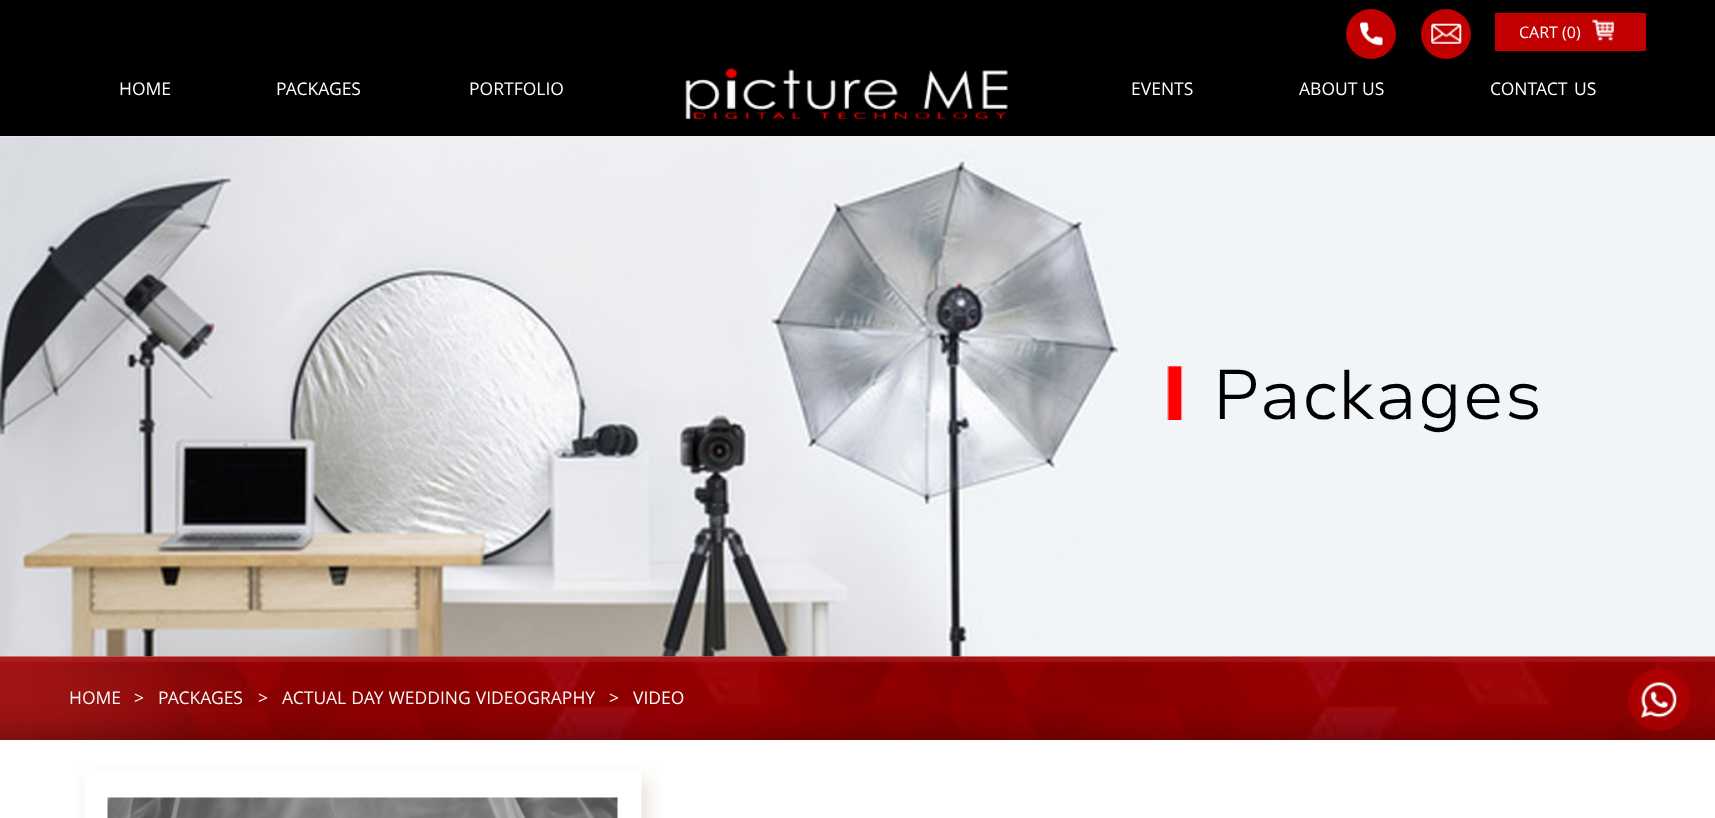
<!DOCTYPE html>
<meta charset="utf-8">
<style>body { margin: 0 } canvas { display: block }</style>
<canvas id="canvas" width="1715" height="818"></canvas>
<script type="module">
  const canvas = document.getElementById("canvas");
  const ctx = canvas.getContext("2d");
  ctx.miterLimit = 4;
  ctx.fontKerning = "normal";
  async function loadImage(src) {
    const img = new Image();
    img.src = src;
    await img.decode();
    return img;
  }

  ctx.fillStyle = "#ffffff";
  ctx.fillRect(0, 0, 1715, 818);
  ctx.fillStyle = "#000000";
  ctx.fillRect(0, 0, 1715, 136);
  ctx.fillStyle = "#c20001";
  ctx.beginPath();
  ctx.arc(1371, 34, 25, 0, Math.PI * 2);
  ctx.fill();
  ctx.drawImage(await loadImage("img1.png"), 1360, 21, 23, 25);
  ctx.beginPath();
  ctx.arc(1446, 34, 25, 0, Math.PI * 2);
  ctx.fill();
  ctx.drawImage(await loadImage("img2.png"), 1431, 23, 31, 21);
  ctx.fillRect(1495, 13, 151, 38);
  ctx.font = "16px Open Sans";
  ctx.fillStyle = "#ffffff";
  ctx.fillText("CART (0)", 1519, 38);
  ctx.drawImage(await loadImage("img3.png"), 1592, 19, 22, 22);
  ctx.font = "17.5px Open Sans";
  ctx.fillText("HOME", 119, 95);
  ctx.fillText("PACKAGES", 276, 95);
  ctx.fillText("PORTFOLIO", 469, 95);
  ctx.drawImage(await loadImage("img4.png"), 685, 67, 324, 53);
  ctx.fillText("EVENTS", 1131, 95);
  ctx.fillText("ABOUT US", 1299, 95);
  ctx.wordSpacing = "2px";
  ctx.fillText("CONTACT US", 1490, 95);
  ctx.drawImage(await loadImage("img7.png"), 0, 656, 1715, 84);
  ctx.drawImage(await loadImage("img5.png"), 0, 136, 1715, 521);
  ctx.drawImage(await loadImage("img6.png"), 1167, 366, 16, 54);
  ctx.wordSpacing = "0px";
  ctx.font = "300 70px Nunito Sans";
  ctx.fillStyle = "#000000";
  ctx.fillText("Packages", 1212, 419);
  ctx.font = "17.5px Open Sans";
  ctx.fillStyle = "#f7f7f7";
  ctx.fillText("HOME", 69, 704);
  ctx.fillStyle = "#ffffff";
  ctx.fillText(">", 134, 704);
  ctx.fillStyle = "#f7f7f7";
  ctx.fillText("PACKAGES", 158, 704);
  ctx.fillStyle = "#ffffff";
  ctx.fillText(">", 258, 704);
  ctx.wordSpacing = "0.5px";
  ctx.fillStyle = "#f7f7f7";
  ctx.fillText("ACTUAL DAY WEDDING VIDEOGRAPHY", 282, 704);
  ctx.wordSpacing = "0px";
  ctx.fillStyle = "#ffffff";
  ctx.fillText(">", 609, 704);
  ctx.fillText("VIDEO", 633, 704);
  ctx.fillStyle = "rgba(194, 0, 1, 0.5)";
  ctx.beginPath();
  ctx.arc(1659, 700, 31, 0, Math.PI * 2);
  ctx.fill();
  ctx.drawImage(await loadImage("img8.png"), 1641, 682, 36, 36);
  ctx.drawImage(await loadImage("img9.png"), 76, 766, 585, 52);
  ctx.drawImage(await loadImage("img10.png"), 107, 797, 511, 21);
</script>
